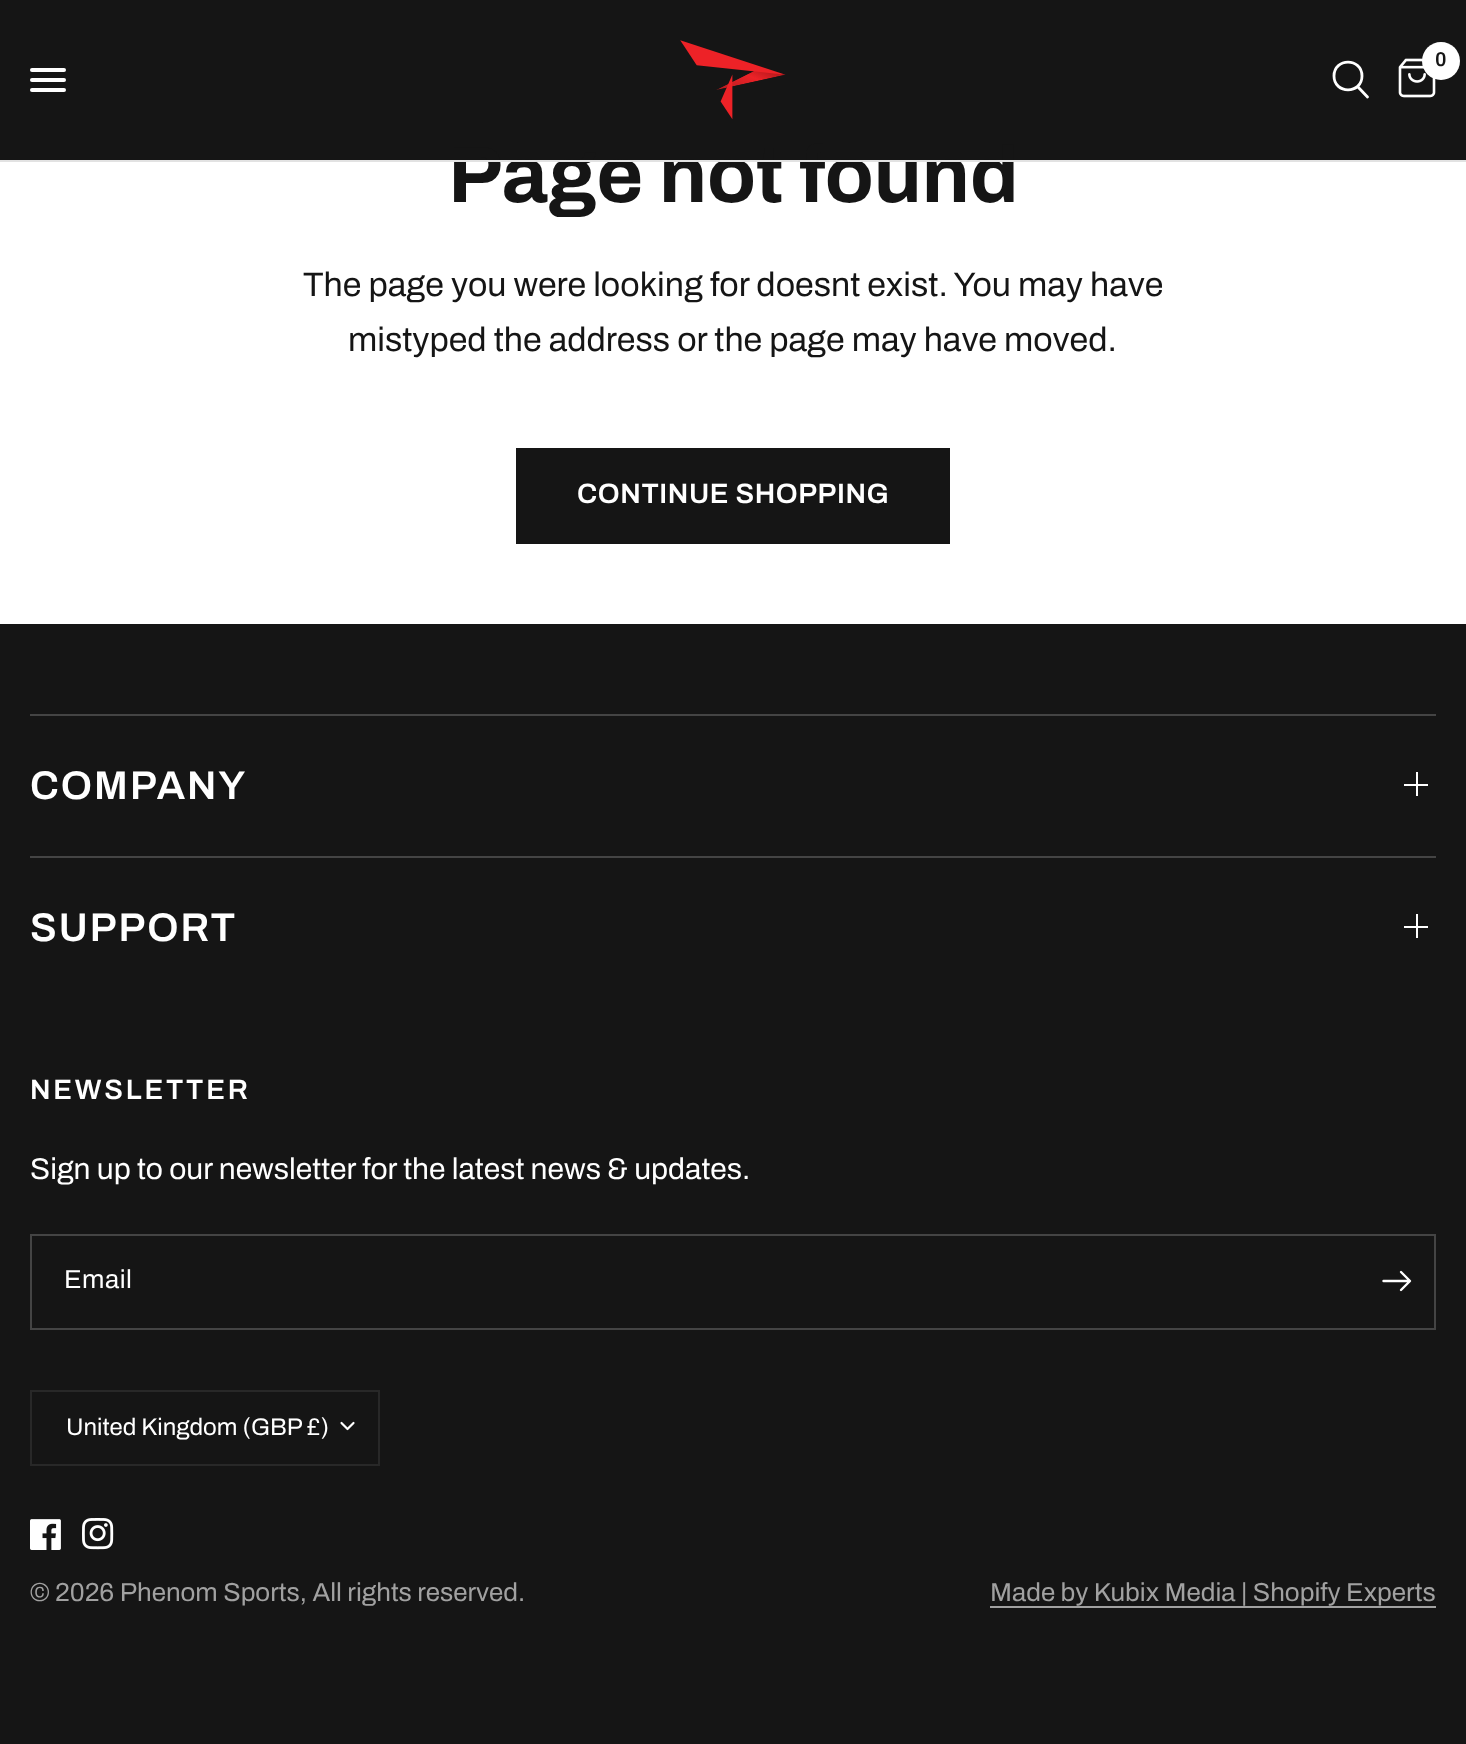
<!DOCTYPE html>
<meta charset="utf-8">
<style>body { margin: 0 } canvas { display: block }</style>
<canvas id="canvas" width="1466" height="1744"></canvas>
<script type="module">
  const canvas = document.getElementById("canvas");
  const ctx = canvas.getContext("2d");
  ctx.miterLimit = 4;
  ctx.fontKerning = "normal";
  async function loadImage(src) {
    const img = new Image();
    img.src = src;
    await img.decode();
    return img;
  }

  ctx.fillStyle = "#ffffff";
  ctx.fillRect(0, 0, 1466, 1744);
  ctx.fillStyle = "#151515";
  ctx.fillRect(0, 0, 1466, 160);
  ctx.font = "bold 80px Archivo";
  ctx.fillText("Page not found", 448, 202);
  ctx.fillStyle = "#e2e2e2";
  ctx.fillRect(0, 160, 1466, 2);
  ctx.drawImage(await loadImage("img1.png"), 680, 40, 106, 80);
  ctx.beginPath();
  ctx.moveTo(1358, 87);
  ctx.lineTo(1367.5, 97);
  ctx.moveTo(1362, 76);
  ctx.bezierCurveTo(1362, 94.5, 1334, 94.5, 1334, 76);
  ctx.bezierCurveTo(1334, 57.5, 1362, 57.5, 1362, 76);
  ctx.closePath();
  ctx.strokeStyle = "#ffffff";
  ctx.lineWidth = 2.8;
  ctx.lineCap = "round";
  ctx.lineJoin = "round";
  ctx.stroke();
  ctx.drawImage(await loadImage("img2.png"), 1398, 58, 38, 40);
  ctx.fillStyle = "#ffffff";
  ctx.beginPath();
  ctx.arc(1441, 61, 19, 0, Math.PI * 2);
  ctx.fill();
  ctx.font = "600 20px Archivo";
  ctx.fillStyle = "#151515";
  ctx.fillText("0", 1435, 66);
  ctx.fillStyle = "#ffffff";
  ctx.beginPath();
  ctx.roundRect(30, 68, 36, 4, 2);
  ctx.fill();
  ctx.beginPath();
  ctx.roundRect(30, 78, 36, 4, 2);
  ctx.fill();
  ctx.beginPath();
  ctx.roundRect(30, 88, 36, 4, 2);
  ctx.fill();
  ctx.font = "34px Archivo";
  ctx.fillStyle = "#151515";
  ctx.fillText("The page you were looking for doesnt exist. You may have", 303, 296);
  ctx.fillText("mistyped the address or the page may have moved.", 348, 351);
  ctx.fillRect(516, 448, 434, 96);
  ctx.letterSpacing = "0.6px";
  ctx.font = "600 28px Archivo";
  ctx.fillStyle = "#ffffff";
  ctx.fillText("CONTINUE SHOPPING", 577, 503);
  ctx.fillStyle = "#151515";
  ctx.fillRect(0, 624, 1466, 1120);
  ctx.fillStyle = "#444444";
  ctx.fillRect(30, 714, 1406, 2);
  ctx.letterSpacing = "2px";
  ctx.font = "600 40px Archivo";
  ctx.fillStyle = "#ffffff";
  ctx.fillText("COMPANY", 30, 799);
  ctx.fillRect(1416, 772, 2, 24);
  ctx.fillRect(1404, 784, 24, 2);
  ctx.fillStyle = "#444444";
  ctx.fillRect(30, 856, 1406, 2);
  ctx.fillStyle = "#ffffff";
  ctx.fillText("SUPPORT", 30, 941);
  ctx.fillRect(1416, 914, 2, 24);
  ctx.fillRect(1404, 926, 24, 2);
  ctx.letterSpacing = "2.75px";
  ctx.font = "600 28px Archivo";
  ctx.fillText("NEWSLETTER", 30, 1099);
  ctx.letterSpacing = "0px";
  ctx.font = "30px Archivo";
  ctx.fillText("Sign up to our newsletter for the latest news & updates.", 30, 1179);
  ctx.strokeStyle = "#444444";
  ctx.lineWidth = 2;
  ctx.lineJoin = "miter";
  ctx.strokeRect(31, 1235, 1404, 94);
  ctx.letterSpacing = "0.5px";
  ctx.font = "26px Archivo";
  ctx.fillText("Email", 64, 1288);
  ctx.beginPath();
  ctx.moveTo(1383.5, 1281);
  ctx.lineTo(1407.5, 1281);
  ctx.moveTo(1401, 1272);
  ctx.lineTo(1410, 1281);
  ctx.lineTo(1401, 1290);
  ctx.strokeStyle = "#ffffff";
  ctx.lineWidth = 2.4;
  ctx.lineJoin = "round";
  ctx.stroke();
  ctx.strokeStyle = "#282828";
  ctx.lineWidth = 2;
  ctx.lineJoin = "miter";
  ctx.strokeRect(31, 1391, 348, 74);
  ctx.letterSpacing = "0px";
  ctx.font = "24px Archivo";
  ctx.fillText("United Kingdom (GBP £)", 66, 1435);
  ctx.beginPath();
  ctx.moveTo(353.5, 1423);
  ctx.lineTo(347.5, 1429);
  ctx.lineTo(341.5, 1423);
  ctx.strokeStyle = "#ffffff";
  ctx.lineWidth = 2.2;
  ctx.lineJoin = "round";
  ctx.stroke();
  ctx.drawImage(await loadImage("img3.png"), 30, 1519, 31, 31);
  ctx.drawImage(await loadImage("img4.png"), 82, 1518, 32, 32);
  ctx.font = "26px Archivo";
  ctx.fillStyle = "#a1a1a1";
  ctx.fillText("© 2026 Phenom Sports, All rights reserved.", 30, 1601);
  ctx.fillText("Made by Kubix Media | Shopify Experts", 990, 1601);
  ctx.fillRect(990, 1606, 446, 2);
</script>
